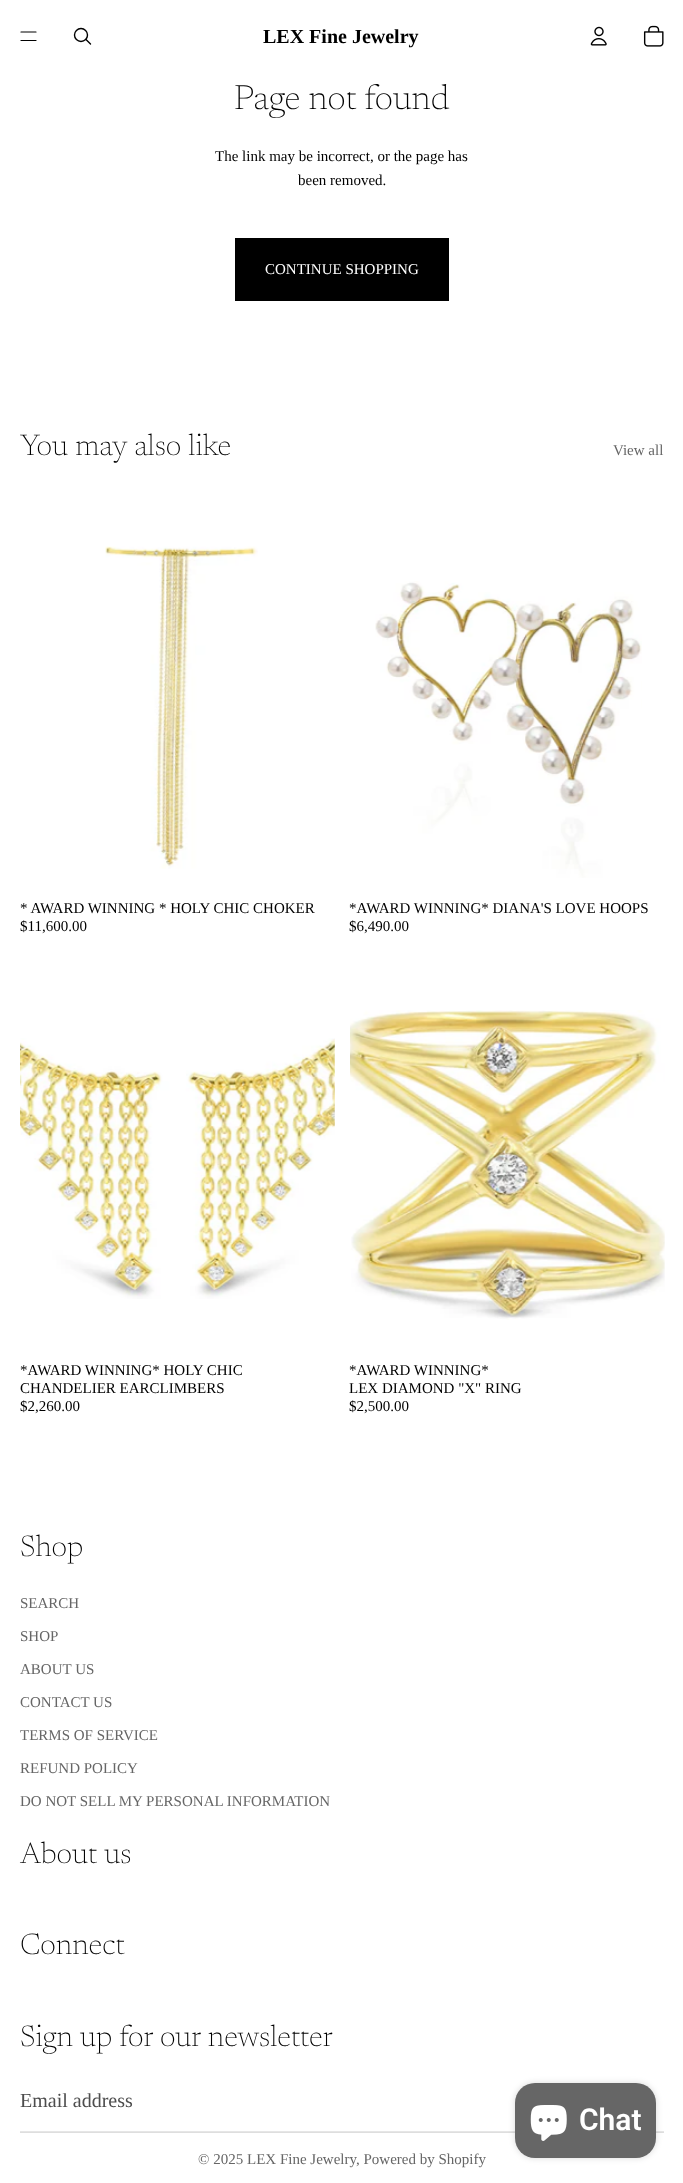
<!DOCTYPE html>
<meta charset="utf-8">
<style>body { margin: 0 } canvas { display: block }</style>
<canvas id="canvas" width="683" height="2183"></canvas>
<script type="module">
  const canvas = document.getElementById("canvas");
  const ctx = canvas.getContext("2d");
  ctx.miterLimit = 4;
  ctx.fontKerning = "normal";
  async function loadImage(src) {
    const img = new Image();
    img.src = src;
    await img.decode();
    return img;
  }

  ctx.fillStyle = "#ffffff";
  ctx.fillRect(0, 0, 683, 2183);
  ctx.beginPath();
  ctx.moveTo(21, 32);
  ctx.lineTo(36, 32);
  ctx.moveTo(21, 40.5);
  ctx.lineTo(36, 40.5);
  ctx.strokeStyle = "#000000";
  ctx.lineWidth = 1.2;
  ctx.lineCap = "round";
  ctx.stroke();
  ctx.beginPath();
  ctx.arc(81, 35, 6.5, 0, Math.PI * 2);
  ctx.lineWidth = 1.4;
  ctx.stroke();
  ctx.beginPath();
  ctx.moveTo(86, 39.5);
  ctx.lineTo(90.5, 44);
  ctx.lineJoin = "round";
  ctx.stroke();
  ctx.font = "bold 20px Liberation Serif";
  ctx.fillStyle = "#000000";
  ctx.fillText("LEX Fine Jewelry", 263, 43);
  ctx.drawImage(await loadImage("img1.png"), 590, 26, 17, 20);
  ctx.drawImage(await loadImage("img2.png"), 643, 25, 21, 22);
  ctx.font = "200 35px Newsreader";
  ctx.fillText("Page not found", 234, 109);
  ctx.font = "15px Liberation Serif";
  ctx.fillText("The link may be incorrect, or the page has", 215, 161);
  ctx.fillText("been removed.", 298, 185);
  ctx.fillRect(235, 238, 214, 63);
  ctx.fillStyle = "#ffffff";
  ctx.fillText("CONTINUE SHOPPING", 265, 274);
  ctx.font = "200 30px Newsreader";
  ctx.fillStyle = "#000000";
  ctx.fillText("You may also like", 20, 455);
  ctx.font = "15px Liberation Serif";
  ctx.fillStyle = "#666666";
  ctx.fillText("View all", 613, 455);
  ctx.drawImage(await loadImage("img3.png"), 105, 546, 153, 323);
  ctx.fillStyle = "#000000";
  ctx.fillText("* AWARD WINNING * HOLY CHIC CHOKER", 20, 913);
  ctx.fillText("$11,600.00", 20, 931);
  ctx.drawImage(await loadImage("img4.png"), 375, 581, 267, 297);
  ctx.fillText("*AWARD WINNING* DIANA'S LOVE HOOPS", 349, 913);
  ctx.fillText("$6,490.00", 349, 931);
  ctx.drawImage(await loadImage("img5.png"), 20, 1038, 315, 261);
  ctx.fillText("*AWARD WINNING* HOLY CHIC", 20, 1375);
  ctx.fillText("CHANDELIER EARCLIMBERS", 20, 1393);
  ctx.fillText("$2,260.00", 20, 1411);
  ctx.drawImage(await loadImage("img6.png"), 350, 1010, 315, 310);
  ctx.fillText("*AWARD WINNING*", 349, 1375);
  ctx.fillText("LEX DIAMOND \"X\" RING", 349, 1393);
  ctx.fillText("$2,500.00", 349, 1411);
  ctx.font = "200 30px Newsreader";
  ctx.fillText("Shop", 20, 1556);
  ctx.font = "15px Liberation Serif";
  ctx.fillStyle = "#666666";
  ctx.fillText("SEARCH", 20, 1608);
  ctx.fillText("SHOP", 20, 1641);
  ctx.fillText("ABOUT US", 20, 1674);
  ctx.fillText("CONTACT US", 20, 1707);
  ctx.fillText("TERMS OF SERVICE", 20, 1740);
  ctx.fillText("REFUND POLICY", 20, 1773);
  ctx.fillText("DO NOT SELL MY PERSONAL INFORMATION", 20, 1806);
  ctx.font = "200 30px Newsreader";
  ctx.fillStyle = "#000000";
  ctx.fillText("About us", 20, 1863);
  ctx.fillText("Connect", 20, 1954);
  ctx.fillText("Sign up for our newsletter", 20, 2046);
  ctx.fillStyle = "#dedede";
  ctx.beginPath();
  ctx.moveTo(20, 2131);
  ctx.lineTo(20, 2133);
  ctx.lineTo(664, 2133);
  ctx.lineTo(664, 2071);
  ctx.lineTo(664, 2131);
  ctx.closePath();
  ctx.fill();
  ctx.font = "20px Liberation Serif";
  ctx.fillStyle = "#4d4d4d";
  ctx.fillText("Email address", 20, 2107);
  ctx.fillStyle = "#e6e6e6";
  ctx.fillRect(20, 2131, 644, 1);
  ctx.fillStyle = "rgba(0, 0, 0, 0.15)";
  ctx.filter = "blur(3px)";
  ctx.beginPath();
  ctx.roundRect(515, 2083, 141, 75, 20);
  ctx.fill();
  ctx.filter = "none";
  ctx.fillStyle = "#666666";
  ctx.beginPath();
  ctx.roundRect(515, 2083, 141, 75, 20);
  ctx.fill();
  ctx.drawImage(await loadImage("img7.png"), 530, 2105, 37, 36);
  ctx.font = "600 30px Roboto";
  ctx.fillStyle = "#ffffff";
  ctx.fillText("Chat", 579, 2130);
  ctx.font = "15px Liberation Serif";
  ctx.fillStyle = "#666666";
  ctx.fillText("© 2025", 198, 2164);
  ctx.fillText("LEX Fine Jewelry", 247, 2164);
  ctx.fillText(", Powered by Shopify", 356, 2164);
</script>
